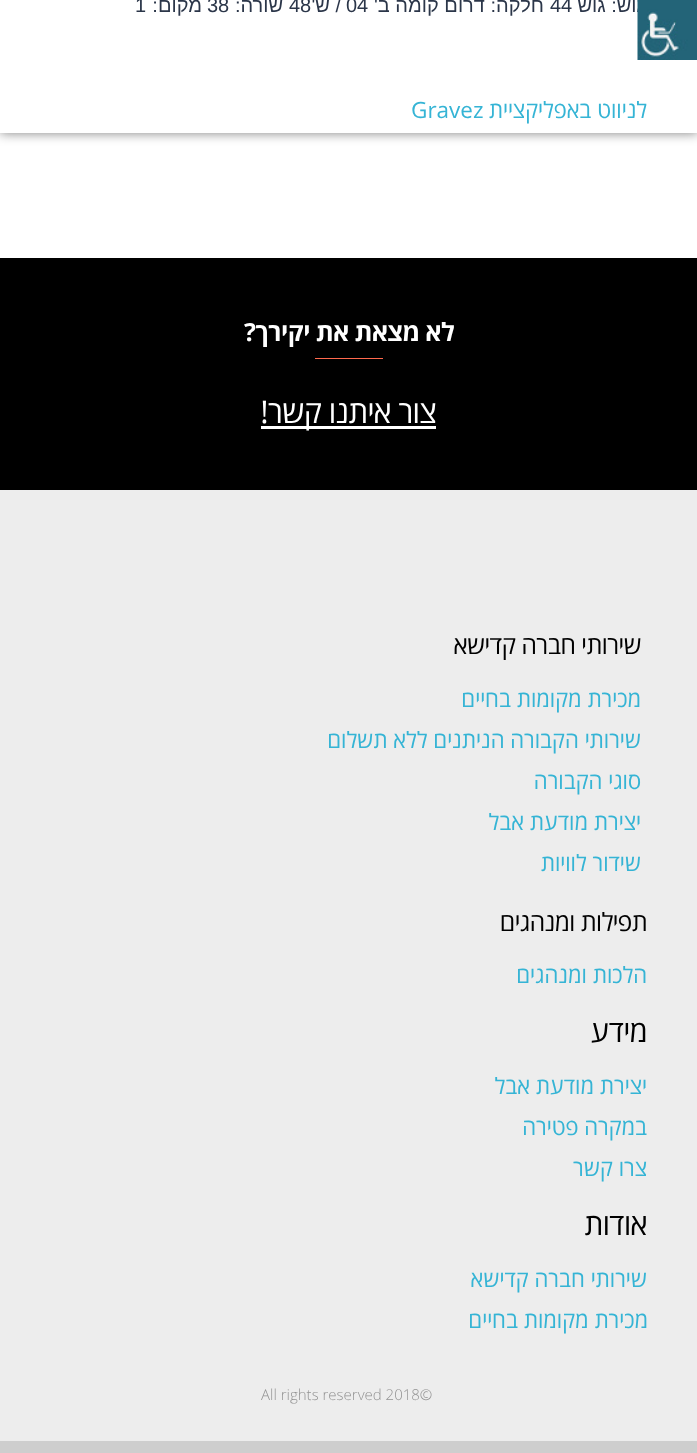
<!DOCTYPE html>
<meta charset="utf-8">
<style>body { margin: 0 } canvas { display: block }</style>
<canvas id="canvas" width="697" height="1453"></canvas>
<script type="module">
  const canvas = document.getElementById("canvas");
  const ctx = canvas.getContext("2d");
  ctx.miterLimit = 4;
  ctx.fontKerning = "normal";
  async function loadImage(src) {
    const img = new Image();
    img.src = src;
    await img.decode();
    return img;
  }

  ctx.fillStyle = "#ffffff";
  ctx.fillRect(0, 0, 697, 1453);
  ctx.save();
  ctx.beginPath();
  ctx.moveTo(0, 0);
  ctx.lineTo(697, 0);
  ctx.lineTo(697, 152);
  ctx.lineTo(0, 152);
  ctx.closePath();
  ctx.moveTo(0, -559);
  ctx.lineTo(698, -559);
  ctx.lineTo(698, 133);
  ctx.lineTo(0, 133);
  ctx.closePath();
  ctx.clip("evenodd");
  ctx.fillStyle = "rgba(0, 0, 0, 0.5)";
  ctx.filter = "blur(6px)";
  ctx.beginPath();
  ctx.rect(0, -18, 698, 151);
  ctx.fill();
  ctx.filter = "none";
  ctx.restore();
  ctx.direction = "rtl";
  ctx.font = "20px Liberation Sans";
  ctx.fillStyle = "#2b3649";
  ctx.fillText("גוש: גוש", 645, 12);
  ctx.drawImage(await loadImage("img1.png"), 637, 0, 60, 60);
  ctx.direction = "ltr";
  ctx.fillText("44", 550, 12);
  ctx.direction = "rtl";
  ctx.fillText("חלקה: דרום קומה ב'", 544, 12);
  ctx.direction = "ltr";
  ctx.fillText("04", 346, 12);
  ctx.direction = "rtl";
  ctx.fillText("/ ש'", 341, 12);
  ctx.direction = "ltr";
  ctx.fillText("48", 289, 12);
  ctx.direction = "rtl";
  ctx.fillText("שורה:", 283, 12);
  ctx.direction = "ltr";
  ctx.fillText("38", 207, 12);
  ctx.direction = "rtl";
  ctx.fillText("מקום:", 202, 12);
  ctx.direction = "ltr";
  ctx.fillText("1", 135, 12);
  ctx.direction = "rtl";
  ctx.font = "22.5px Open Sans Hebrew";
  ctx.fillStyle = "#35b4d5";
  ctx.fillText("לניווט באפליקציית", 647, 118);
  ctx.direction = "ltr";
  ctx.fillText("Gravez", 411, 118);
  ctx.fillStyle = "#000000";
  ctx.fillRect(0, 258, 697, 232);
  ctx.letterSpacing = "-0.5px";
  ctx.direction = "rtl";
  ctx.font = "bold 25px Open Sans Hebrew";
  ctx.fillStyle = "#ffffff";
  ctx.fillText("לא מצאת את יקירך?", 454, 341);
  ctx.fillStyle = "#ff694d";
  ctx.fillRect(315, 358, 68, 1);
  ctx.fillStyle = "#ffffff";
  ctx.fillRect(261, 426, 175, 3);
  ctx.letterSpacing = "-0.6px";
  ctx.font = "31.25px Open Sans Hebrew";
  ctx.fillText("צור איתנו קשר!", 436, 423);
  ctx.fillStyle = "#ededed";
  ctx.fillRect(0, 490, 697, 951);
  ctx.fillStyle = "#cecece";
  ctx.fillRect(0, 1441, 697, 12);
  ctx.letterSpacing = "-0.5px";
  ctx.font = "25px Open Sans Hebrew";
  ctx.fillStyle = "#000000";
  ctx.fillText("שירותי חברה קדישא", 641, 654);
  ctx.letterSpacing = "0px";
  ctx.font = "22.5px Open Sans Hebrew";
  ctx.fillStyle = "#35b4d5";
  ctx.fillText("מכירת מקומות בחיים", 641, 707);
  ctx.fillText("שירותי הקבורה הניתנים ללא תשלום", 641, 748);
  ctx.fillText("סוגי הקבורה", 641, 789);
  ctx.fillText("יצירת מודעת אבל", 641, 830);
  ctx.fillText("שידור לוויות", 641, 871);
  ctx.letterSpacing = "-0.5px";
  ctx.font = "25px Open Sans Hebrew";
  ctx.fillStyle = "#000000";
  ctx.fillText("תפילות ומנהגים", 647, 931);
  ctx.letterSpacing = "0px";
  ctx.font = "22.5px Open Sans Hebrew";
  ctx.fillStyle = "#35b4d5";
  ctx.fillText("הלכות ומנהגים", 647, 983);
  ctx.letterSpacing = "-0.5px";
  ctx.font = "30px Open Sans Hebrew";
  ctx.fillStyle = "#000000";
  ctx.fillText("מידע", 647, 1042);
  ctx.letterSpacing = "0px";
  ctx.font = "22.5px Open Sans Hebrew";
  ctx.fillStyle = "#35b4d5";
  ctx.fillText("יצירת מודעת אבל", 647, 1094);
  ctx.fillText("במקרה פטירה", 647, 1135);
  ctx.fillText("צרו קשר", 647, 1176);
  ctx.letterSpacing = "-0.5px";
  ctx.font = "30px Open Sans Hebrew";
  ctx.fillStyle = "#000000";
  ctx.fillText("אודות", 647, 1235);
  ctx.letterSpacing = "0px";
  ctx.font = "22.5px Open Sans Hebrew";
  ctx.fillStyle = "#35b4d5";
  ctx.fillText("שירותי חברה קדישא", 647, 1287);
  ctx.fillText("מכירת מקומות בחיים", 648, 1328);
  ctx.direction = "ltr";
  ctx.font = "300 15px Open Sans Hebrew";
  ctx.fillStyle = "#939393";
  ctx.fillText("All rights reserved 2018©", 261, 1400);
</script>
